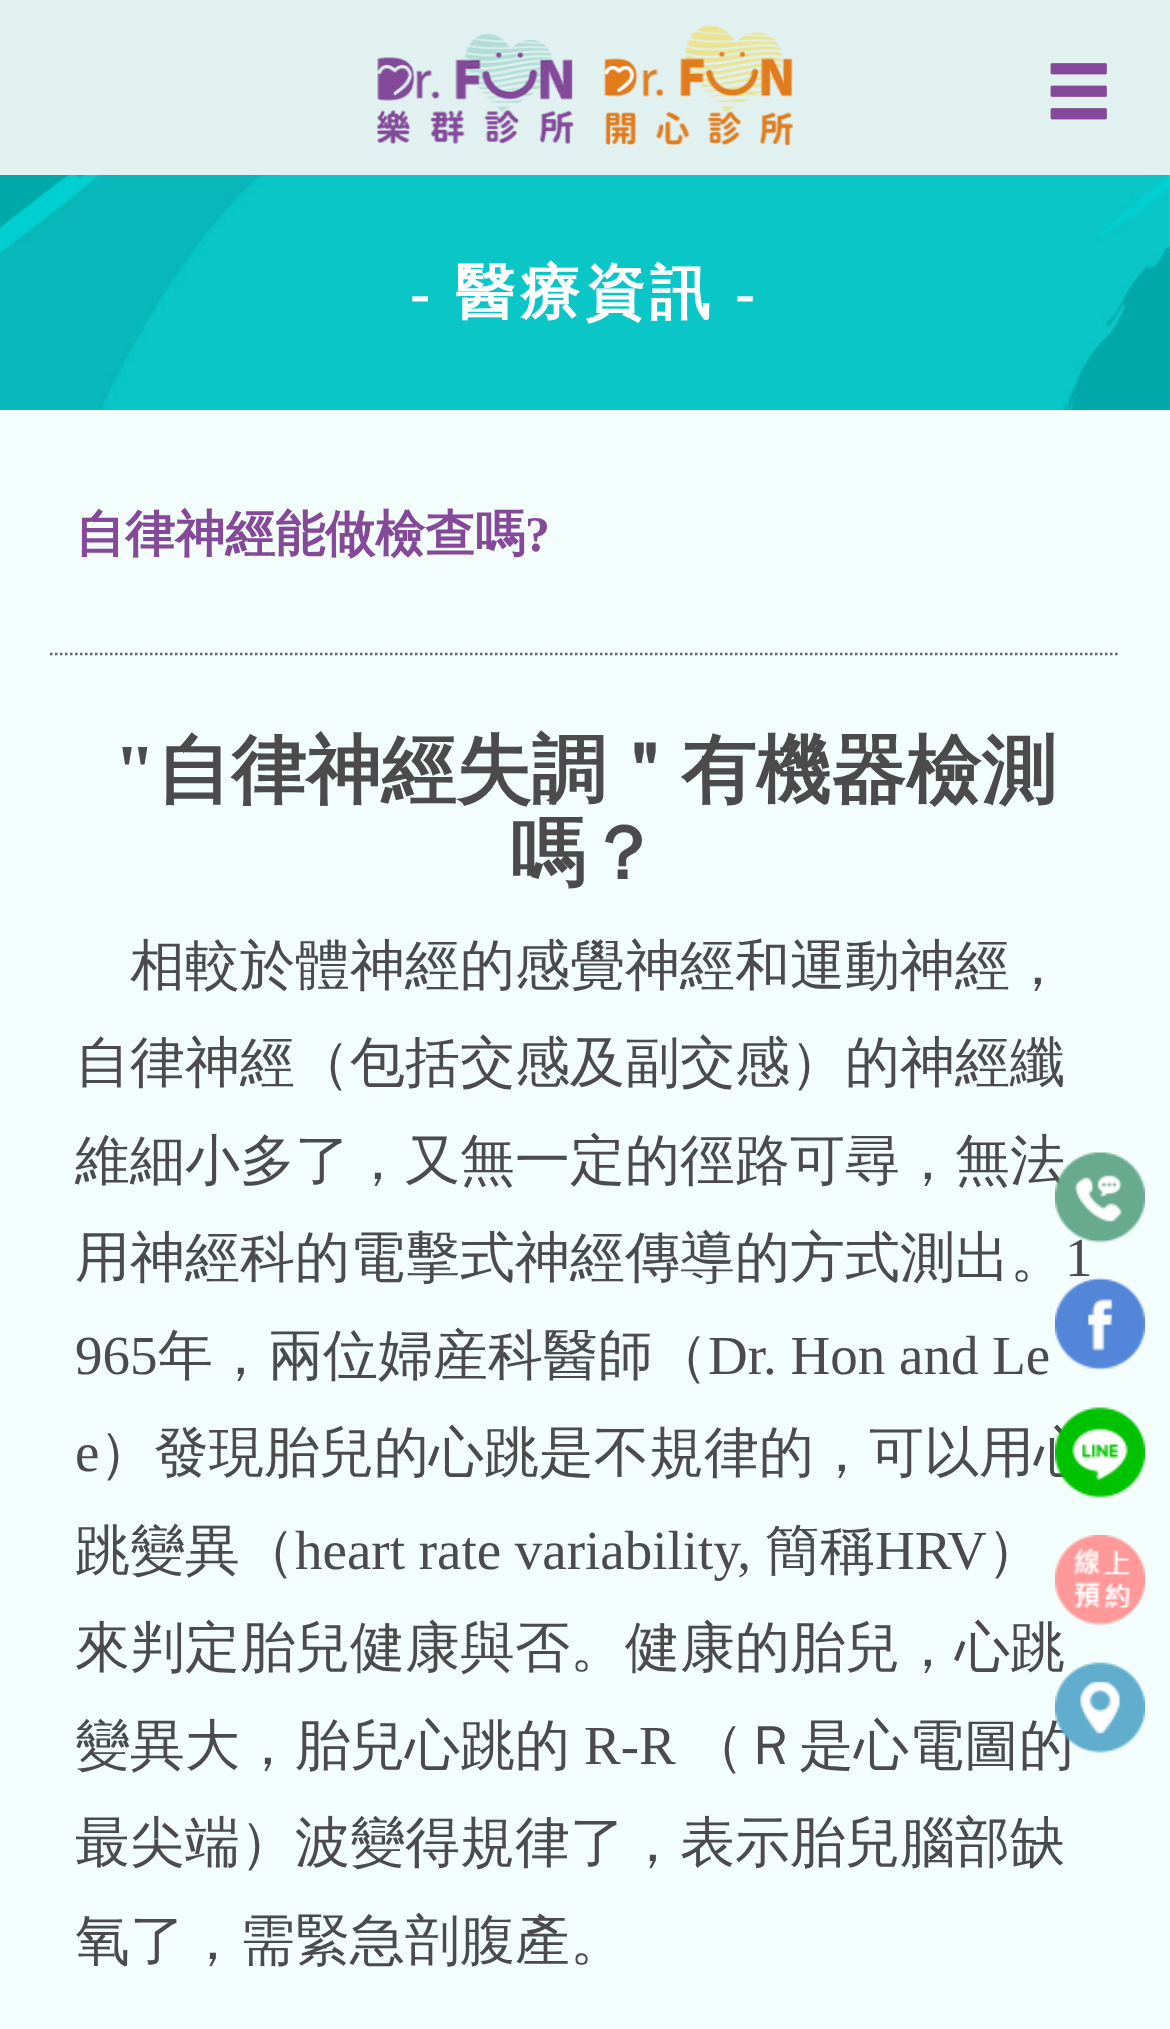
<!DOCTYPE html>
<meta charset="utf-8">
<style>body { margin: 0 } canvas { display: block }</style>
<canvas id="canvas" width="1170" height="2029"></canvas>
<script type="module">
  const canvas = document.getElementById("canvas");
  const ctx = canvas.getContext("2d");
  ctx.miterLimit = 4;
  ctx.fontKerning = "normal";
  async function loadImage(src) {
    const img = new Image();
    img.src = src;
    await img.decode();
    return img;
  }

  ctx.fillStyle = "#f3fdfc";
  ctx.fillRect(0, 0, 1170, 2029);
  ctx.fillStyle = "#e0f1f0";
  ctx.fillRect(0, 0, 1170, 175);
  ctx.drawImage(await loadImage("img1.png"), 377, 25, 416, 120);
  ctx.drawImage(await loadImage("img2.png"), 1050, 63, 57, 57);
  ctx.drawImage(await loadImage("img3.png"), 0, 175, 1170, 235);
  ctx.letterSpacing = "5px";
  ctx.font = "bold 60px Liberation Serif";
  ctx.fillStyle = "#ffffff";
  ctx.fillText("-", 410, 313);
  ctx.font = "bold 60px WenQuanYi Zen Hei";
  ctx.fillText("醫療資訊", 455, 313);
  ctx.font = "bold 60px Liberation Serif";
  ctx.fillText("-", 735, 313);
  ctx.beginPath();
  ctx.moveTo(50, 654);
  ctx.lineTo(1120, 654);
  ctx.strokeStyle = "#666666";
  ctx.lineWidth = 2.5;
  ctx.setLineDash([2.5, 2.5]);
  ctx.stroke();
  ctx.letterSpacing = "0px";
  ctx.font = "bold 50px WenQuanYi Zen Hei";
  ctx.fillStyle = "#844999";
  ctx.fillText("自律神經能做檢查嗎", 75, 551);
  ctx.font = "bold 50px Liberation Serif";
  ctx.fillText("?", 525, 551);
  ctx.font = "bold 75px Liberation Serif";
  ctx.fillStyle = "#4b4b4b";
  ctx.fillText("\"", 114, 796);
  ctx.font = "bold 75px WenQuanYi Zen Hei";
  ctx.fillText("自律神經失調＂有機器檢測", 156, 796);
  ctx.fillText("嗎？", 510, 879);
  ctx.font = "500 55px WenQuanYi Zen Hei";
  ctx.fillText("相較於體神經的感覺神經和運動神經，", 130, 984);
  ctx.fillText("自律神經（包括交感及副交感）的神經纖", 75, 1081);
  ctx.fillText("維細小多了，又無一定的徑路可尋，無法", 75, 1179);
  ctx.fillText("用神經科的電擊式神經傳導的方式測出。", 75, 1276);
  ctx.font = "55px Liberation Serif";
  ctx.fillText("1", 1065, 1276);
  ctx.fillText("965", 75, 1374);
  ctx.font = "500 55px WenQuanYi Zen Hei";
  ctx.fillText("年，兩位婦産科醫師（", 158, 1374);
  ctx.font = "55px Liberation Serif";
  ctx.fillText("Dr. Hon and Le", 708, 1374);
  ctx.fillText("e", 75, 1471);
  ctx.font = "500 55px WenQuanYi Zen Hei";
  ctx.fillText("）發現胎兒的心跳是不規律的，可以用心", 99, 1471);
  ctx.fillText("跳變異（", 75, 1569);
  ctx.font = "55px Liberation Serif";
  ctx.fillText("heart rate variability,", 295, 1569);
  ctx.font = "500 55px WenQuanYi Zen Hei";
  ctx.fillText("簡稱", 765, 1569);
  ctx.font = "55px Liberation Serif";
  ctx.fillText("HRV", 875, 1569);
  ctx.font = "500 55px WenQuanYi Zen Hei";
  ctx.fillText("）", 987, 1569);
  ctx.fillText("來判定胎兒健康與否。健康的胎兒，心跳", 75, 1666);
  ctx.fillText("變異大，胎兒心跳的", 75, 1764);
  ctx.font = "55px Liberation Serif";
  ctx.fillText("R-R", 584, 1764);
  ctx.font = "500 55px WenQuanYi Zen Hei";
  ctx.fillText("（Ｒ是心電圖的", 689, 1764);
  ctx.fillText("最尖端）波變得規律了，表示胎兒腦部缺", 75, 1861);
  ctx.fillText("氧了，需緊急剖腹產。", 75, 1959);
  ctx.drawImage(await loadImage("img4.png"), 1055, 1152, 90, 91);
  ctx.drawImage(await loadImage("img5.png"), 1055, 1277, 90, 93);
  ctx.drawImage(await loadImage("img6.png"), 1055, 1407, 90, 91);
  ctx.drawImage(await loadImage("img7.png"), 1055, 1535, 90, 90);
  ctx.drawImage(await loadImage("img8.png"), 1055, 1662, 90, 91);
</script>
